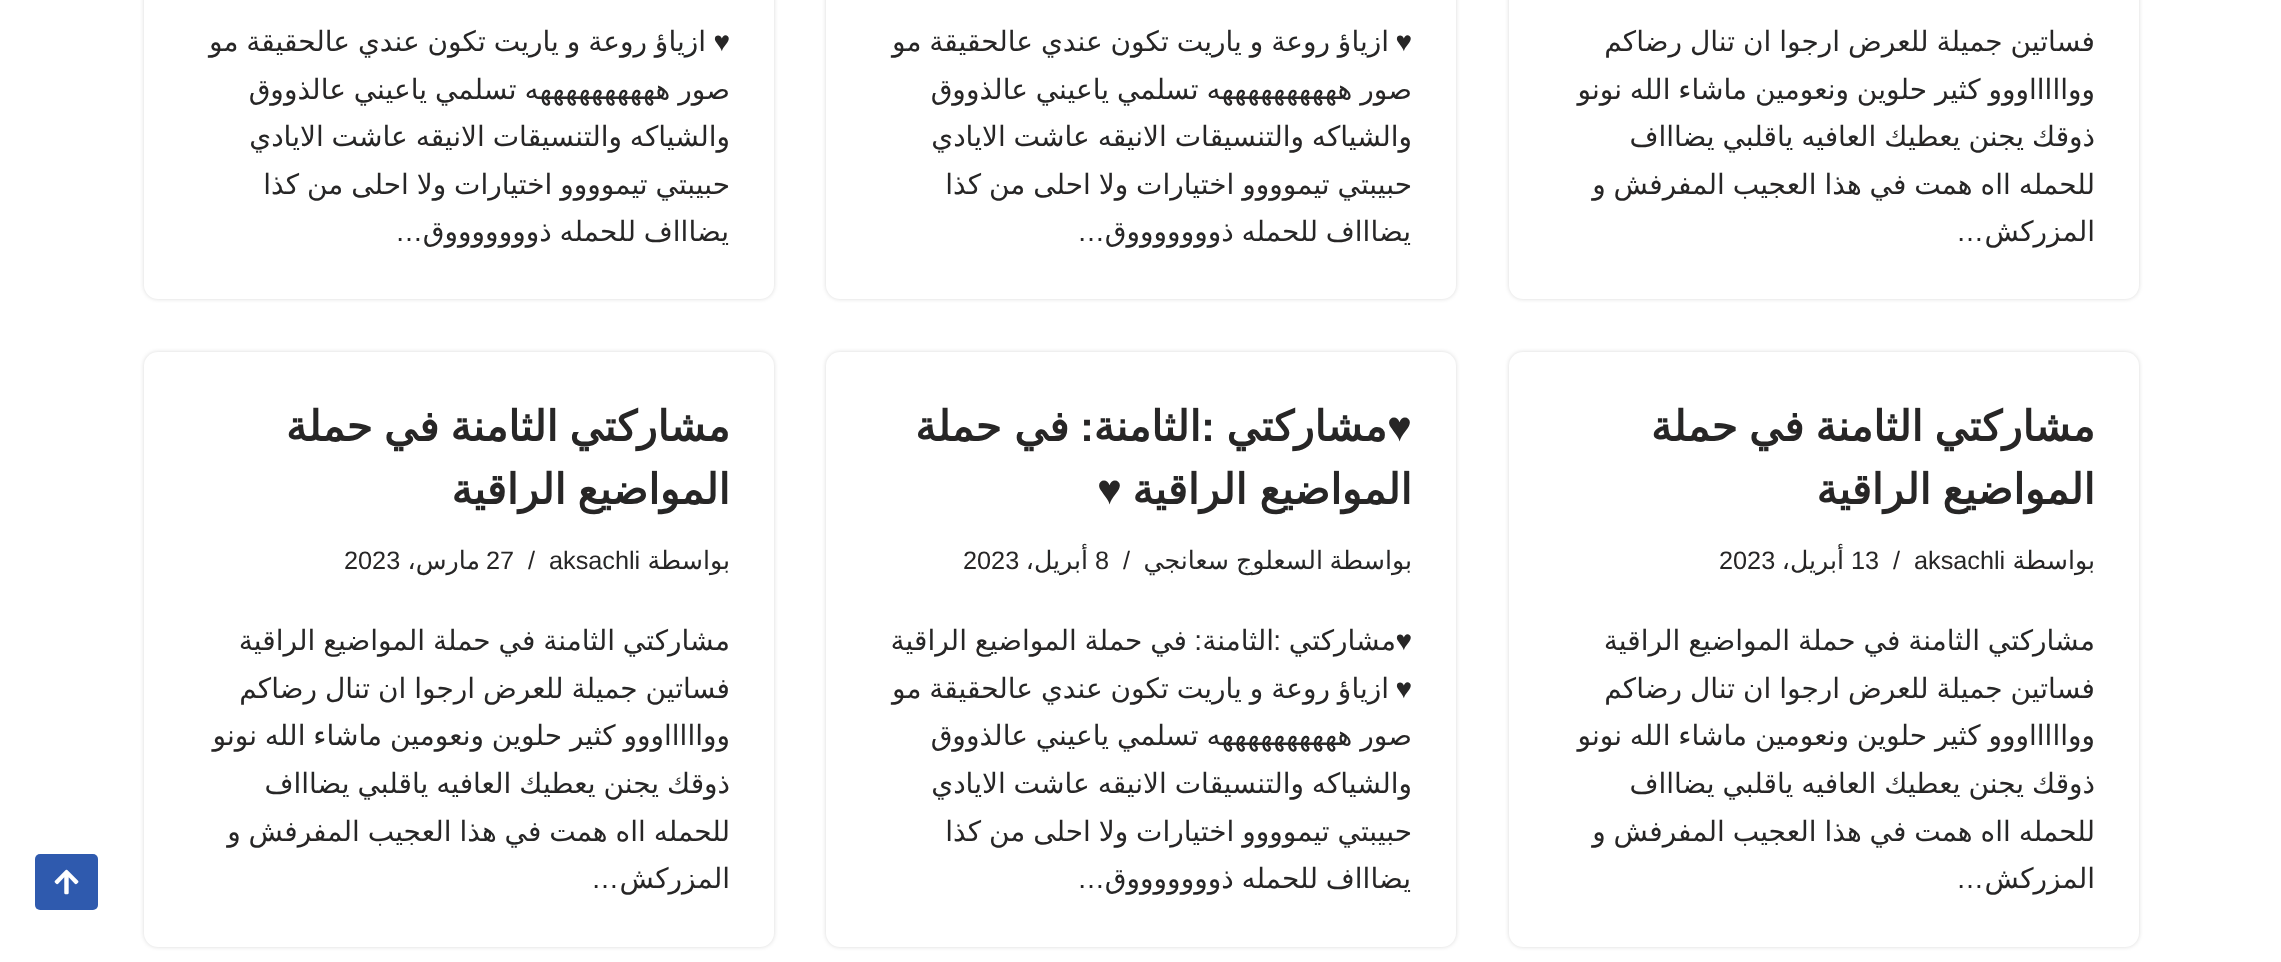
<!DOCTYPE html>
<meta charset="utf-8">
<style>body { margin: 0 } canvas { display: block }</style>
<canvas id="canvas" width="2281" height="962"></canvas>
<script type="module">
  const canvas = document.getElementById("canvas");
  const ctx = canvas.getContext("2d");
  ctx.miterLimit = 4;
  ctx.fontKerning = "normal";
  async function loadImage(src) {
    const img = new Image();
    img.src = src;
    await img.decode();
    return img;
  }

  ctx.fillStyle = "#ffffff";
  ctx.fillRect(0, 0, 2281, 962);
  ctx.fillStyle = "rgba(0, 0, 0, 0.15)";
  ctx.filter = "blur(2px)";
  ctx.beginPath();
  ctx.roundRect(1509, -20, 630, 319, 14);
  ctx.fill();
  ctx.filter = "none";
  ctx.fillStyle = "#ffffff";
  ctx.beginPath();
  ctx.roundRect(1509, -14, 630, 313, 14);
  ctx.fill();
  ctx.wordSpacing = "-1px";
  ctx.direction = "rtl";
  ctx.font = "28px DejaVu Sans";
  ctx.fillStyle = "#272626";
  ctx.fillText("فساتين جميلة للعرض ارجوا ان تنال رضاكم", 2095, 51);
  ctx.fillText("وواااااووو كثير حلوين ونعومين ماشاء الله نونو", 2095, 99);
  ctx.fillText("ذوقك يجنن يعطيك العافيه ياقلبي يضاااف", 2095, 146);
  ctx.fillText("للحمله ااه همت في هذا العجيب المفرفش و", 2095, 194);
  ctx.wordSpacing = "0px";
  ctx.fillText("المزركش", 2095, 241);
  ctx.font = "28px Liberation Sans";
  ctx.fillText("…", 1984, 241);
  ctx.fillStyle = "rgba(0, 0, 0, 0.15)";
  ctx.filter = "blur(2px)";
  ctx.beginPath();
  ctx.roundRect(826, -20, 630, 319, 14);
  ctx.fill();
  ctx.filter = "none";
  ctx.fillStyle = "#ffffff";
  ctx.beginPath();
  ctx.roundRect(826, -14, 630, 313, 14);
  ctx.fill();
  ctx.fillStyle = "#272626";
  ctx.fillText("♥", 1412, 51);
  ctx.wordSpacing = "-1px";
  ctx.font = "28px DejaVu Sans";
  ctx.fillText("ازياؤ روعة و ياريت تكون عندي عالحقيقة مو", 1389, 51);
  ctx.fillText("صور ههههههههههه تسلمي ياعيني عالذووق", 1412, 99);
  ctx.fillText("والشياكه والتنسيقات الانيقه عاشت الايادي", 1412, 146);
  ctx.fillText("حبيبتي تيموووو اختيارات ولا احلى من كذا", 1412, 194);
  ctx.fillText("يضاااف للحمله ذوووووووق", 1411, 241);
  ctx.wordSpacing = "0px";
  ctx.font = "28px Liberation Sans";
  ctx.fillText("…", 1105, 241);
  ctx.fillStyle = "rgba(0, 0, 0, 0.15)";
  ctx.filter = "blur(2px)";
  ctx.beginPath();
  ctx.roundRect(144, -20, 630, 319, 14);
  ctx.fill();
  ctx.filter = "none";
  ctx.fillStyle = "#ffffff";
  ctx.beginPath();
  ctx.roundRect(144, -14, 630, 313, 14);
  ctx.fill();
  ctx.fillStyle = "#272626";
  ctx.fillText("♥", 730, 51);
  ctx.wordSpacing = "-1px";
  ctx.font = "28px DejaVu Sans";
  ctx.fillText("ازياؤ روعة و ياريت تكون عندي عالحقيقة مو", 706, 51);
  ctx.fillText("صور ههههههههههه تسلمي ياعيني عالذووق", 730, 99);
  ctx.fillText("والشياكه والتنسيقات الانيقه عاشت الايادي", 730, 146);
  ctx.fillText("حبيبتي تيموووو اختيارات ولا احلى من كذا", 730, 194);
  ctx.fillText("يضاااف للحمله ذوووووووق", 729, 241);
  ctx.wordSpacing = "0px";
  ctx.font = "28px Liberation Sans";
  ctx.fillText("…", 423, 241);
  ctx.fillStyle = "rgba(0, 0, 0, 0.15)";
  ctx.filter = "blur(2px)";
  ctx.beginPath();
  ctx.roundRect(1509, 352, 630, 595, 14);
  ctx.fill();
  ctx.filter = "none";
  ctx.fillStyle = "#ffffff";
  ctx.beginPath();
  ctx.roundRect(1509, 352, 630, 595, 14);
  ctx.fill();
  ctx.wordSpacing = "-2px";
  ctx.font = "bold 42px DejaVu Sans";
  ctx.fillStyle = "#272626";
  ctx.fillText("مشاركتي الثامنة في حملة", 2095, 441);
  ctx.fillText("المواضيع الراقية", 2095, 504);
  ctx.wordSpacing = "0px";
  ctx.font = "25.25px DejaVu Sans";
  ctx.fillText("بواسطة", 2095, 569);
  ctx.direction = "ltr";
  ctx.font = "25.25px Liberation Sans";
  ctx.fillText("aksachli", 1914, 569);
  ctx.fillText("/", 1893, 569);
  ctx.fillText("13", 1851, 569);
  ctx.direction = "rtl";
  ctx.font = "25.25px DejaVu Sans";
  ctx.fillText("أبريل،", 1844, 569);
  ctx.direction = "ltr";
  ctx.font = "25.25px Liberation Sans";
  ctx.fillText("2023", 1719, 569);
  ctx.wordSpacing = "-1px";
  ctx.direction = "rtl";
  ctx.font = "28px DejaVu Sans";
  ctx.fillText("مشاركتي الثامنة في حملة المواضيع الراقية", 2095, 650);
  ctx.fillText("فساتين جميلة للعرض ارجوا ان تنال رضاكم", 2095, 698);
  ctx.fillText("وواااااووو كثير حلوين ونعومين ماشاء الله نونو", 2095, 745);
  ctx.fillText("ذوقك يجنن يعطيك العافيه ياقلبي يضاااف", 2095, 793);
  ctx.fillText("للحمله ااه همت في هذا العجيب المفرفش و", 2095, 841);
  ctx.wordSpacing = "0px";
  ctx.fillText("المزركش", 2095, 888);
  ctx.font = "28px Liberation Sans";
  ctx.fillText("…", 1984, 888);
  ctx.fillStyle = "rgba(0, 0, 0, 0.15)";
  ctx.filter = "blur(2px)";
  ctx.beginPath();
  ctx.roundRect(826, 352, 630, 595, 14);
  ctx.fill();
  ctx.filter = "none";
  ctx.fillStyle = "#ffffff";
  ctx.beginPath();
  ctx.roundRect(826, 352, 630, 595, 14);
  ctx.fill();
  ctx.font = "bold 42px Liberation Sans";
  ctx.fillStyle = "#272626";
  ctx.fillText("♥", 1412, 441);
  ctx.font = "bold 42px DejaVu Sans";
  ctx.fillText("مشاركتي", 1387, 441);
  ctx.font = "bold 42px Liberation Sans";
  ctx.fillText(":", 1215, 441);
  ctx.font = "bold 42px DejaVu Sans";
  ctx.fillText("الثامنة", 1201, 441);
  ctx.font = "bold 42px Liberation Sans";
  ctx.fillText(":", 1094, 441);
  ctx.wordSpacing = "-1px";
  ctx.font = "bold 42px DejaVu Sans";
  ctx.fillText("في حملة", 1069, 441);
  ctx.fillText("المواضيع الراقية", 1412, 504);
  ctx.wordSpacing = "0px";
  ctx.font = "bold 42px Liberation Sans";
  ctx.fillText("♥", 1122, 504);
  ctx.font = "25.25px DejaVu Sans";
  ctx.fillText("بواسطة", 1412, 569);
  ctx.wordSpacing = "-1px";
  ctx.fillText("السعلوج سعانجي", 1323, 569);
  ctx.wordSpacing = "0px";
  ctx.direction = "ltr";
  ctx.font = "25.25px Liberation Sans";
  ctx.fillText("/", 1123, 569);
  ctx.fillText("8", 1095, 569);
  ctx.direction = "rtl";
  ctx.font = "25.25px DejaVu Sans";
  ctx.fillText("أبريل،", 1088, 569);
  ctx.direction = "ltr";
  ctx.font = "25.25px Liberation Sans";
  ctx.fillText("2023", 963, 569);
  ctx.direction = "rtl";
  ctx.font = "28px Liberation Sans";
  ctx.fillText("♥", 1412, 650);
  ctx.font = "28px DejaVu Sans";
  ctx.fillText("مشاركتي", 1396, 650);
  ctx.font = "28px Liberation Sans";
  ctx.fillText(":", 1281, 650);
  ctx.font = "28px DejaVu Sans";
  ctx.fillText("الثامنة", 1274, 650);
  ctx.font = "28px Liberation Sans";
  ctx.fillText(":", 1202, 650);
  ctx.wordSpacing = "-1px";
  ctx.font = "28px DejaVu Sans";
  ctx.fillText("في حملة المواضيع الراقية", 1187, 650);
  ctx.wordSpacing = "0px";
  ctx.font = "28px Liberation Sans";
  ctx.fillText("♥", 1412, 698);
  ctx.wordSpacing = "-1px";
  ctx.font = "28px DejaVu Sans";
  ctx.fillText("ازياؤ روعة و ياريت تكون عندي عالحقيقة مو", 1389, 698);
  ctx.fillText("صور ههههههههههه تسلمي ياعيني عالذووق", 1412, 745);
  ctx.fillText("والشياكه والتنسيقات الانيقه عاشت الايادي", 1412, 793);
  ctx.fillText("حبيبتي تيموووو اختيارات ولا احلى من كذا", 1412, 841);
  ctx.fillText("يضاااف للحمله ذوووووووق", 1411, 888);
  ctx.wordSpacing = "0px";
  ctx.font = "28px Liberation Sans";
  ctx.fillText("…", 1105, 888);
  ctx.fillStyle = "rgba(0, 0, 0, 0.15)";
  ctx.filter = "blur(2px)";
  ctx.beginPath();
  ctx.roundRect(144, 352, 630, 595, 14);
  ctx.fill();
  ctx.filter = "none";
  ctx.fillStyle = "#ffffff";
  ctx.beginPath();
  ctx.roundRect(144, 352, 630, 595, 14);
  ctx.fill();
  ctx.wordSpacing = "-2px";
  ctx.font = "bold 42px DejaVu Sans";
  ctx.fillStyle = "#272626";
  ctx.fillText("مشاركتي الثامنة في حملة", 730, 441);
  ctx.fillText("المواضيع الراقية", 730, 504);
  ctx.wordSpacing = "0px";
  ctx.font = "25.25px DejaVu Sans";
  ctx.fillText("بواسطة", 730, 569);
  ctx.direction = "ltr";
  ctx.font = "25.25px Liberation Sans";
  ctx.fillText("aksachli", 549, 569);
  ctx.fillText("/", 528, 569);
  ctx.fillText("27", 486, 569);
  ctx.direction = "rtl";
  ctx.font = "25.25px DejaVu Sans";
  ctx.fillText("مارس،", 480, 569);
  ctx.direction = "ltr";
  ctx.font = "25.25px Liberation Sans";
  ctx.fillText("2023", 344, 569);
  ctx.wordSpacing = "-1px";
  ctx.direction = "rtl";
  ctx.font = "28px DejaVu Sans";
  ctx.fillText("مشاركتي الثامنة في حملة المواضيع الراقية", 730, 650);
  ctx.fillText("فساتين جميلة للعرض ارجوا ان تنال رضاكم", 730, 698);
  ctx.fillText("وواااااووو كثير حلوين ونعومين ماشاء الله نونو", 730, 745);
  ctx.fillText("ذوقك يجنن يعطيك العافيه ياقلبي يضاااف", 730, 793);
  ctx.fillText("للحمله ااه همت في هذا العجيب المفرفش و", 730, 841);
  ctx.wordSpacing = "0px";
  ctx.fillText("المزركش", 730, 888);
  ctx.font = "28px Liberation Sans";
  ctx.fillText("…", 619, 888);
  ctx.fillStyle = "#2f5aae";
  ctx.beginPath();
  ctx.roundRect(35, 854, 63, 56, 5);
  ctx.fill();
  ctx.drawImage(await loadImage("img1.png"), 54, 869, 25, 26);
</script>
